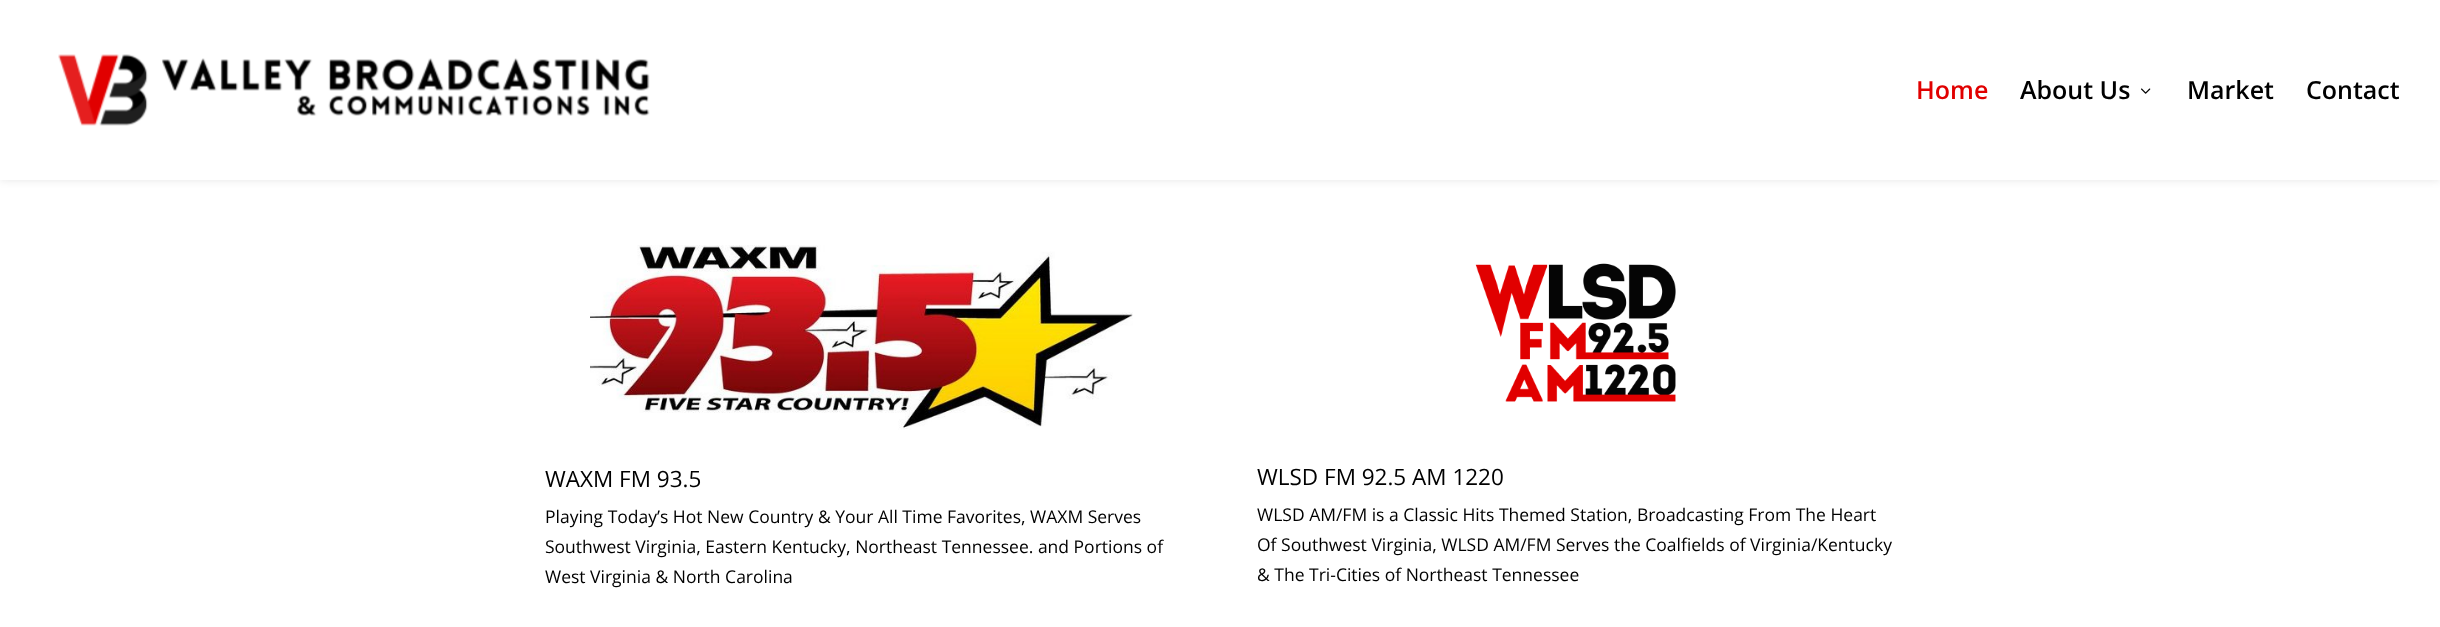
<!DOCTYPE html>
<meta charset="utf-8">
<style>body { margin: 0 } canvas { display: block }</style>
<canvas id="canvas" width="2440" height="627"></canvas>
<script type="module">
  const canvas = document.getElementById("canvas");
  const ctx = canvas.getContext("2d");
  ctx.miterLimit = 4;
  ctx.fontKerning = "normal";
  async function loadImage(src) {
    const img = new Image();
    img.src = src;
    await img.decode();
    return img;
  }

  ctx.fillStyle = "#ffffff";
  ctx.fillRect(0, 0, 2440, 627);
  ctx.fillStyle = "rgba(0, 0, 0, 0.1)";
  ctx.filter = "blur(4.5px)";
  ctx.beginPath();
  ctx.rect(0, 0, 2440, 180);
  ctx.fill();
  ctx.filter = "none";
  ctx.fillStyle = "#ffffff";
  ctx.fillRect(0, 0, 2440, 180);
  ctx.drawImage(await loadImage("img1.png"), 58, 54, 592, 72);
  ctx.font = "600 25px Open Sans";
  ctx.fillStyle = "#e10000";
  ctx.fillText("Home", 1916, 99);
  ctx.fillStyle = "#000000";
  ctx.fillText("About Us", 2020, 99);
  ctx.drawImage(await loadImage("img2.png"), 2141, 88, 10, 6);
  ctx.fillText("Market", 2187, 99);
  ctx.fillText("Contact", 2306, 99);
  ctx.drawImage(await loadImage("img3.png"), 590, 245, 543, 185);
  ctx.font = "22.5px Open Sans";
  ctx.fillText("WAXM FM 93.5", 545, 487);
  ctx.font = "17.5px Open Sans";
  ctx.fillText("Playing Today’s Hot New Country & Your All Time Favorites, WAXM Serves", 545, 523);
  ctx.fillText("Southwest Virginia, Eastern Kentucky, Northeast Tennessee. and Portions of", 545, 553);
  ctx.fillText("West Virginia & North Carolina", 545, 583);
  ctx.drawImage(await loadImage("img4.png"), 1475, 263, 201, 139);
  ctx.font = "22.5px Open Sans";
  ctx.fillText("WLSD FM 92.5 AM 1220", 1257, 485);
  ctx.font = "17.5px Open Sans";
  ctx.fillText("WLSD AM/FM is a Classic Hits Themed Station, Broadcasting From The Heart", 1257, 521);
  ctx.fillText("Of Southwest Virginia, WLSD AM/FM Serves the Coalfields of Virginia/Kentucky", 1257, 551);
  ctx.fillText("& The Tri-Cities of Northeast Tennessee", 1257, 581);
</script>
